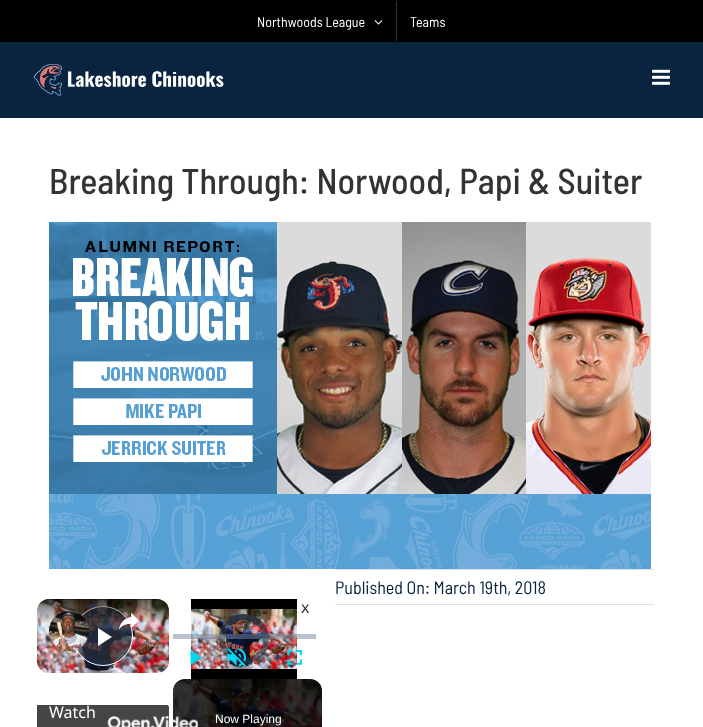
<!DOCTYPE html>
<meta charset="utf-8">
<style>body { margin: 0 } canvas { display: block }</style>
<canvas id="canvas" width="703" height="727"></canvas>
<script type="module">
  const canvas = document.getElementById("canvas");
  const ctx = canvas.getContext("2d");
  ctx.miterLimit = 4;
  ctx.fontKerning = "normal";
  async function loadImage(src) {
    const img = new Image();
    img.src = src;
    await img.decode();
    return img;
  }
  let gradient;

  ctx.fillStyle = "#ffffff";
  ctx.fillRect(0, 0, 703, 727);
  ctx.fillStyle = "#000000";
  ctx.fillRect(0, 0, 703, 42);
  ctx.font = "14px Barlow Semi Condensed";
  ctx.fillStyle = "#ffffff";
  ctx.fillText("Northwoods League", 257, 27);
  ctx.drawImage(await loadImage("img1.png"), 374, 20, 9, 5);
  ctx.fillStyle = "#333333";
  ctx.fillRect(396, 1, 1, 40);
  ctx.fillStyle = "#ffffff";
  ctx.fillText("Teams", 410, 27);
  ctx.fillStyle = "#0a233f";
  ctx.fillRect(0, 42, 703, 76);
  ctx.drawImage(await loadImage("img2.png"), 33, 64, 191, 32);
  ctx.drawImage(await loadImage("img3.png"), 652, 69, 18, 16);
  ctx.font = "500 35.9px Barlow Semi Condensed";
  ctx.fillStyle = "#333333";
  ctx.fillText("Breaking Through: Norwood, Papi & Suiter", 49, 194);
  ctx.drawImage(await loadImage("img4.png"), 49, 222, 602, 347);
  ctx.fillStyle = "#e0e0e2";
  ctx.fillRect(335, 569, 319, 1);
  ctx.fillRect(335, 604, 319, 1);
  ctx.font = "18px Barlow Semi Condensed";
  ctx.fillStyle = "#0a233f";
  ctx.fillText("Published On: March 19th, 2018", 335, 594);
  ctx.drawImage(await loadImage("img5.png"), 37, 599, 132, 74);
  ctx.fillStyle = "rgba(43, 51, 63, 0.7)";
  ctx.beginPath();
  ctx.arc(103, 636, 29.5, 0, Math.PI * 2);
  ctx.fill();
  ctx.strokeStyle = "#ffffff";
  ctx.stroke();
  ctx.fillStyle = "#ffffff";
  ctx.beginPath();
  ctx.moveTo(98, 628);
  ctx.lineTo(98, 646);
  ctx.lineTo(112, 637);
  ctx.closePath();
  ctx.fill();
  gradient = ctx.createLinearGradient(103, 599, 103, 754);
  gradient.addColorStop(0, "rgba(0, 0, 0, 0.6)");
  gradient.addColorStop(0.16, "rgba(0, 0, 0, 0)");
  gradient.addColorStop(0.84, "rgba(0, 0, 0, 0)");
  gradient.addColorStop(1, "rgba(0, 0, 0, 0.8)");
  ctx.fillStyle = gradient;
  ctx.beginPath();
  ctx.roundRect(37, 599, 132, 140, 12);
  ctx.fill();
  ctx.drawImage(await loadImage("img6.png"), 49, 611, 40, 40);
  ctx.drawImage(await loadImage("img7.png"), 118, 611, 22, 19);
  ctx.fillStyle = "#454545";
  ctx.beginPath();
  ctx.moveTo(37, 705);
  ctx.lineTo(167, 705);
  ctx.bezierCurveTo(168, 705, 169, 706, 169, 707);
  ctx.lineTo(169, 727);
  ctx.bezierCurveTo(169, 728, 168, 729, 167, 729);
  ctx.lineTo(37, 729);
  ctx.closePath();
  ctx.fill();
  ctx.font = "16px Noto Sans";
  ctx.fillStyle = "#ffffff";
  ctx.fillText("Watch", 49, 718);
  ctx.fillStyle = "#000000";
  ctx.beginPath();
  ctx.roundRect(173, 679, 149, 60, 12);
  ctx.fill();
  ctx.drawImage(await loadImage("img12.png"), 173, 679, 149, 48);
  ctx.drawImage(await loadImage("img8.png"), 107, 716, 91, 11);
  ctx.drawImage(await loadImage("img9.png"), 191, 599, 106, 80);
  ctx.beginPath();
  ctx.arc(244, 639, 22, 0, Math.PI * 2);
  ctx.strokeStyle = "rgba(43, 51, 63, 0.59)";
  ctx.lineWidth = 6;
  ctx.stroke();
  ctx.beginPath();
  ctx.moveTo(228.5, 623.5);
  ctx.bezierCurveTo(237, 615, 251, 615, 259.5, 623.5);
  ctx.stroke();
  ctx.beginPath();
  ctx.moveTo(228.5, 623.5);
  ctx.bezierCurveTo(237, 615, 251, 615, 259.5, 623.5);
  ctx.stroke();
  ctx.fillStyle = "rgba(115, 133, 159, 0.5)";
  ctx.fillRect(173, 634, 143, 5);
  ctx.fillStyle = "#03d8f3";
  ctx.beginPath();
  ctx.moveTo(190.5, 650);
  ctx.lineTo(190.5, 665);
  ctx.lineTo(202, 657.5);
  ctx.closePath();
  ctx.fill();
  ctx.drawImage(await loadImage("img10.png"), 227, 648, 20, 19);
  ctx.drawImage(await loadImage("img11.png"), 287, 650, 15, 15);
  ctx.fillStyle = "#333333";
  ctx.fillText("x", 301, 613);
  ctx.font = "12px Liberation Sans";
  ctx.fillStyle = "#ffffff";
  ctx.fillText("Now Playing", 215, 723);
</script>
